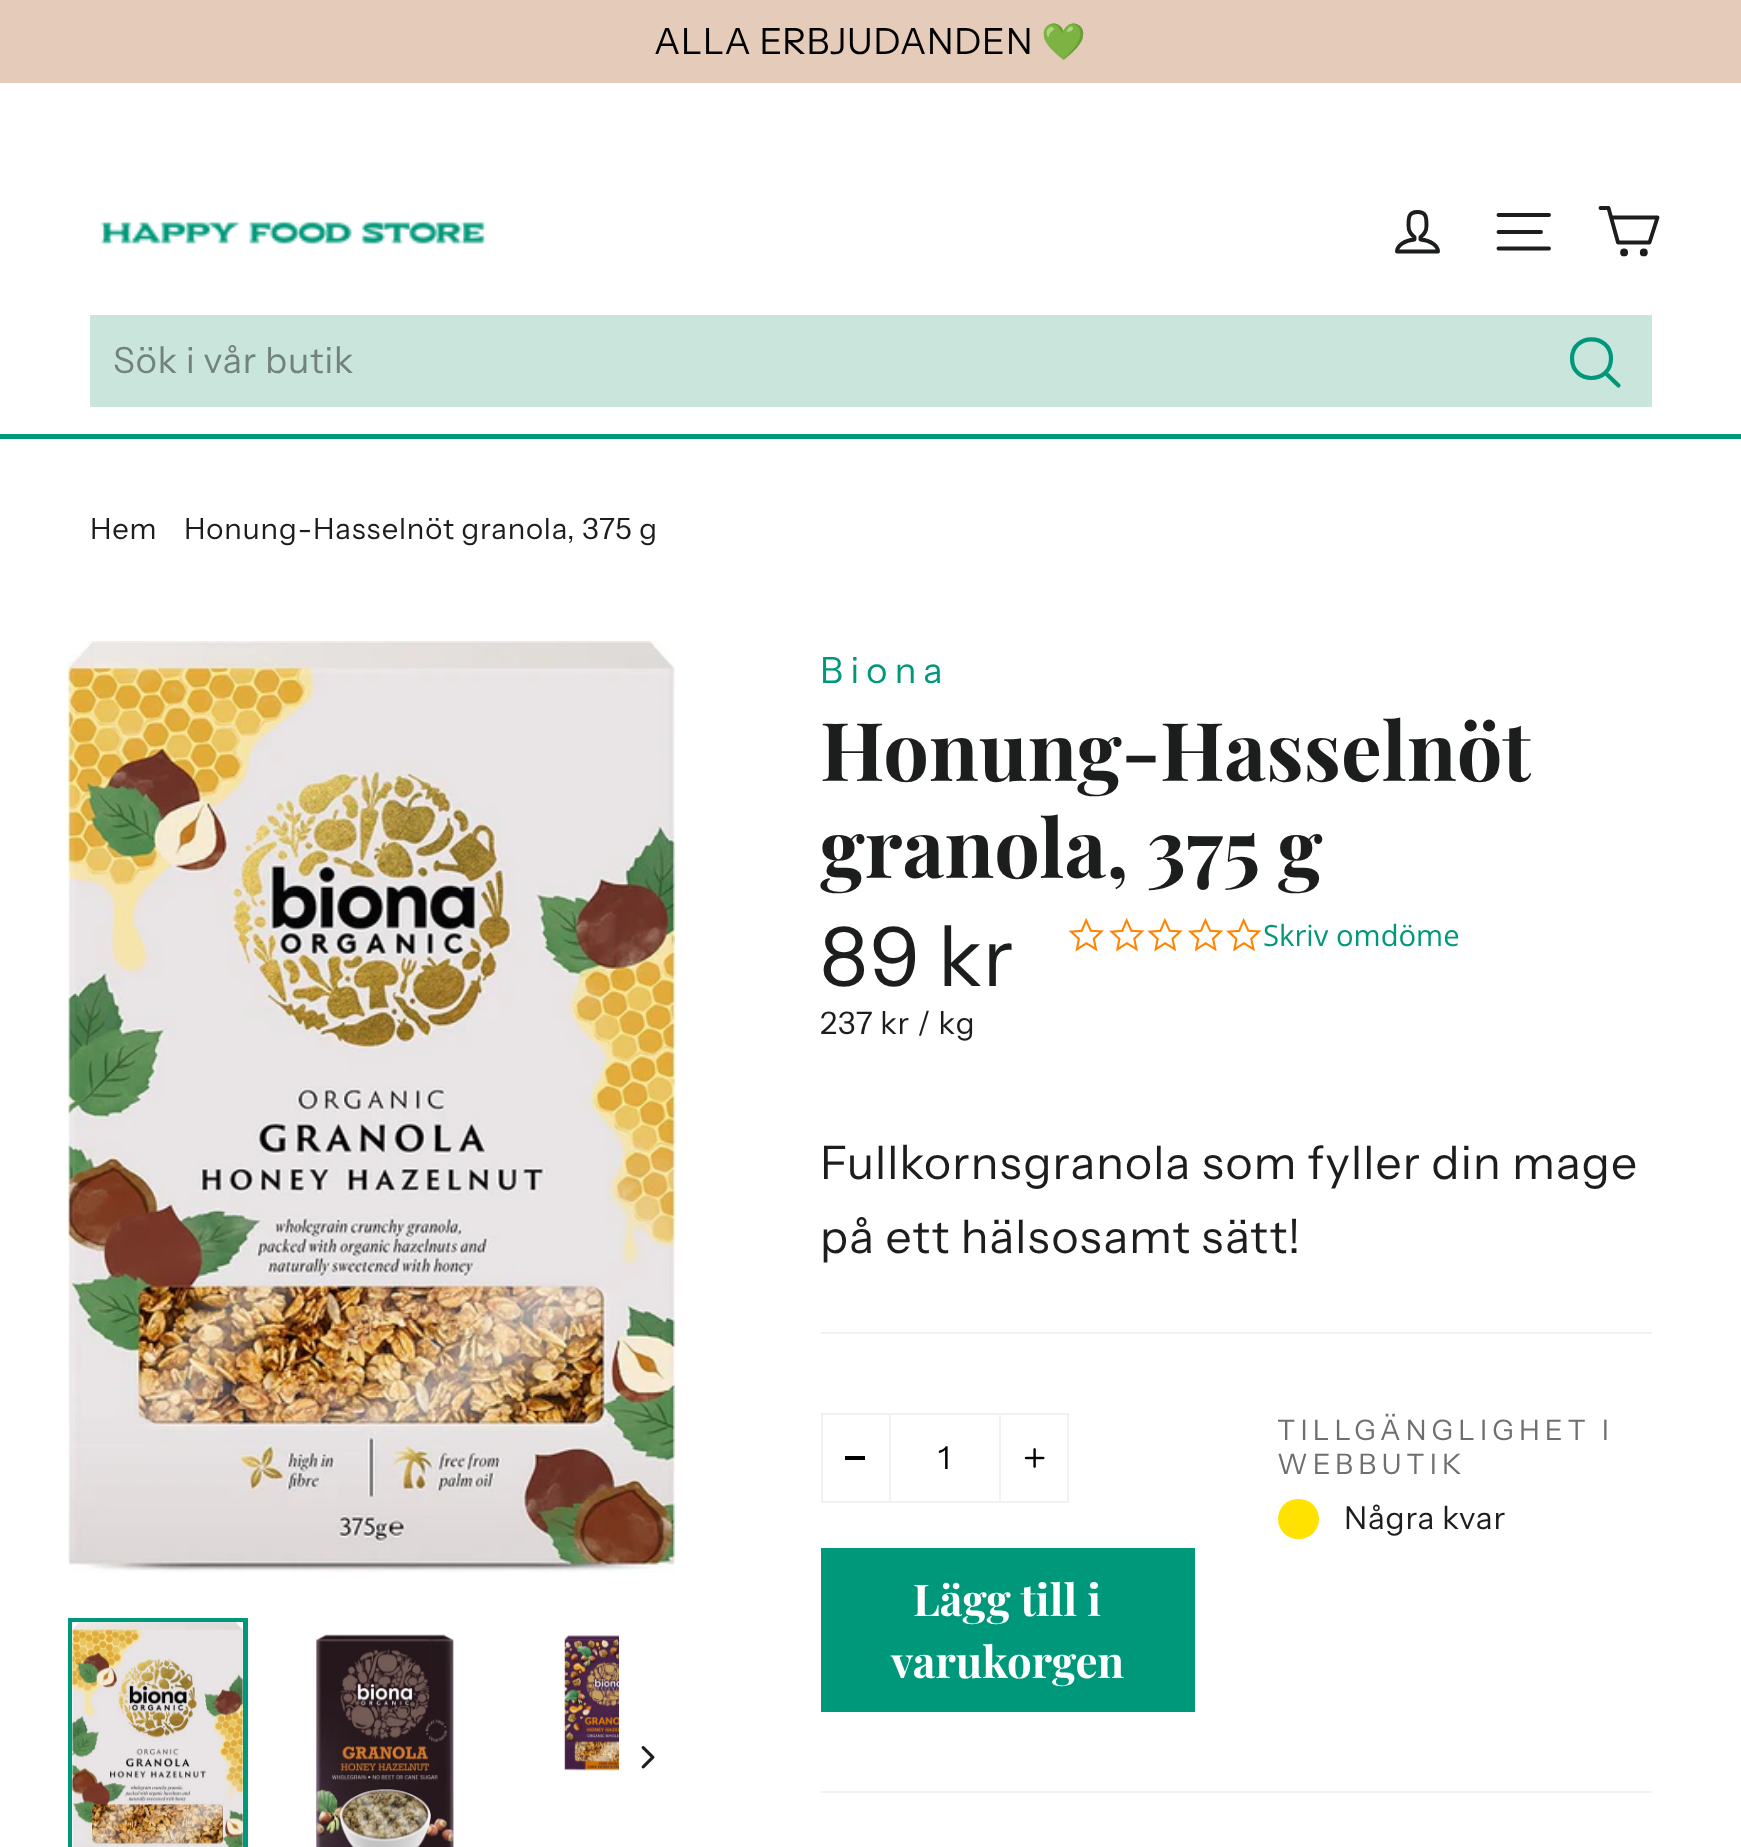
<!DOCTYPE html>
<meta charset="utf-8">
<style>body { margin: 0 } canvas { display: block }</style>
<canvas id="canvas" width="1741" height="1847"></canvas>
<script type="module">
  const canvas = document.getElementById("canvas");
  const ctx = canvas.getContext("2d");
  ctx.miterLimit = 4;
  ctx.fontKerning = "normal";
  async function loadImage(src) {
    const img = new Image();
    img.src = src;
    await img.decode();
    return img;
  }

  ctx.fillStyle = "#ffffff";
  ctx.fillRect(0, 0, 1741, 1847);
  ctx.fillStyle = "#e4cbba";
  ctx.fillRect(0, 0, 1741, 83);
  ctx.letterSpacing = "0.8px";
  ctx.font = "36px Instrument Sans";
  ctx.fillStyle = "#000000";
  ctx.fillText("ALLA ERBJUDANDEN", 654, 54);
  ctx.font = "36px Noto Color Emoji";
  ctx.fillText("💚", 1041, 54);
  ctx.fillStyle = "#00987a";
  ctx.fillRect(0, 434, 1741, 5);
  ctx.drawImage(await loadImage("img1.png"), 100, 220, 385, 25);
  ctx.beginPath();
  ctx.moveTo(1420.5, 239.5);
  ctx.lineTo(1420.5, 237);
  ctx.bezierCurveTo(1423.5, 235, 1426.5, 230.5, 1426.5, 225.5);
  ctx.bezierCurveTo(1426.5, 218, 1426.5, 212, 1417.5, 212);
  ctx.bezierCurveTo(1408.5, 212, 1408.5, 218, 1408.5, 225.5);
  ctx.bezierCurveTo(1408.5, 230.5, 1411.5, 235, 1414.5, 237);
  ctx.lineTo(1414.5, 239.5);
  ctx.bezierCurveTo(1404.5, 240.5, 1397, 245.5, 1397, 251.5);
  ctx.lineTo(1438, 251.5);
  ctx.bezierCurveTo(1438, 245.5, 1430.5, 240.5, 1420.5, 239.5);
  ctx.closePath();
  ctx.strokeStyle = "#1c1d1d";
  ctx.lineWidth = 3.9;
  ctx.lineCap = "round";
  ctx.lineJoin = "round";
  ctx.stroke();
  ctx.beginPath();
  ctx.moveTo(1498.5, 215);
  ctx.lineTo(1549, 215);
  ctx.moveTo(1498.5, 232);
  ctx.lineTo(1541, 232);
  ctx.moveTo(1498.5, 248.5);
  ctx.lineTo(1549, 248.5);
  ctx.stroke();
  ctx.beginPath();
  ctx.moveTo(1611.5, 217.5);
  ctx.lineTo(1657.5, 217.5);
  ctx.lineTo(1649.5, 242.5);
  ctx.lineTo(1618, 242.5);
  ctx.lineTo(1608.5, 208);
  ctx.lineTo(1600.5, 208);
  ctx.stroke();
  ctx.beginPath();
  ctx.arc(1624.1, 252.4, 2, 0, Math.PI * 2);
  ctx.stroke();
  ctx.beginPath();
  ctx.arc(1643.8, 252.4, 2, 0, Math.PI * 2);
  ctx.stroke();
  ctx.fillStyle = "#cae6dc";
  ctx.fillRect(90, 315, 1562, 92);
  ctx.letterSpacing = "0.9px";
  ctx.font = "36px Instrument Sans";
  ctx.fillStyle = "#73827d";
  ctx.fillText("Sök i vår butik", 113, 373);
  ctx.beginPath();
  ctx.moveTo(1611, 358.5);
  ctx.bezierCurveTo(1611, 384.5, 1572, 384.5, 1572, 358.5);
  ctx.bezierCurveTo(1572, 333, 1611, 333, 1611, 358.5);
  ctx.closePath();
  ctx.moveTo(1618.5, 385.5);
  ctx.lineTo(1605.5, 373);
  ctx.strokeStyle = "#00987a";
  ctx.lineWidth = 4.2;
  ctx.stroke();
  ctx.letterSpacing = "0.8px";
  ctx.font = "29.25px Instrument Sans";
  ctx.fillStyle = "#1c1d1d";
  ctx.fillText("Hem", 90, 539);
  ctx.fillText("Honung-Hasselnöt granola, 375 g", 184, 539);
  ctx.drawImage(await loadImage("img2.png"), 68, 641, 607, 932);
  ctx.lineWidth = 5;
  ctx.lineJoin = "miter";
  ctx.strokeRect(70.5, 1620.5, 175, 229);
  ctx.drawImage(await loadImage("img3.png"), 72, 1622, 171, 225);
  ctx.drawImage(await loadImage("img4.png"), 315, 1634, 139, 213);
  ctx.drawImage(await loadImage("img5.png"), 564, 1635, 55, 136);
  ctx.drawImage(await loadImage("img6.png"), 641, 1746, 14, 23);
  ctx.letterSpacing = "7.25px";
  ctx.font = "36px Instrument Sans";
  ctx.fillStyle = "#00987a";
  ctx.fillText("Biona", 820, 683);
  ctx.letterSpacing = "0px";
  ctx.font = "bold 81px Playfair Display";
  ctx.fillStyle = "#1c1d1d";
  ctx.fillText("Honung-Hasselnöt", 820, 781);
  ctx.fillText("granola, 375 g", 820, 878);
  ctx.letterSpacing = "0.8px";
  ctx.font = "82px Instrument Sans";
  ctx.fillText("89 kr", 820, 986);
  ctx.font = "31px Instrument Sans";
  ctx.fillText("237 kr / kg", 820, 1034);
  ctx.drawImage(await loadImage("img7.png"), 1068, 918, 36, 34);
  ctx.drawImage(await loadImage("img8.png"), 1109, 918, 36, 34);
  ctx.drawImage(await loadImage("img9.png"), 1147, 918, 36, 34);
  ctx.drawImage(await loadImage("img10.png"), 1188, 918, 36, 34);
  ctx.drawImage(await loadImage("img8.png"), 1226, 918, 36, 34);
  ctx.letterSpacing = "0px";
  ctx.font = "29.25px Open Sans";
  ctx.fillStyle = "#00987a";
  ctx.fillText("Skriv omdöme", 1263, 946);
  ctx.letterSpacing = "1.15px";
  ctx.font = "46.25px Instrument Sans";
  ctx.fillStyle = "#1c1d1d";
  ctx.fillText("Fullkornsgranola som fyller din mage", 820, 1179);
  ctx.fillText("på ett hälsosamt sätt!", 820, 1253);
  ctx.fillStyle = "#f0f1f3";
  ctx.fillRect(821, 1332, 831, 2);
  ctx.strokeStyle = "#f0f1f3";
  ctx.lineWidth = 2;
  ctx.strokeRect(822, 1414, 246, 88);
  ctx.fillStyle = "#f2f2f2";
  ctx.fillRect(889, 1413, 2, 90);
  ctx.fillStyle = "#000000";
  ctx.fillRect(845, 1456, 20, 4);
  ctx.letterSpacing = "0.8px";
  ctx.font = "31.5px Instrument Sans";
  ctx.fillText("1", 938, 1469);
  ctx.fillStyle = "#f2f2f2";
  ctx.fillRect(999, 1413, 2, 90);
  ctx.drawImage(await loadImage("img11.png"), 1024, 1448, 21, 20);
  ctx.fillStyle = "#00987a";
  ctx.fillRect(821, 1548, 374, 164);
  ctx.letterSpacing = "0px";
  ctx.font = "bold 43.75px Playfair Display";
  ctx.fillStyle = "#ffffff";
  ctx.fillText("Lägg till i", 913, 1616);
  ctx.fillText("varukorgen", 891, 1678);
  ctx.letterSpacing = "5.1px";
  ctx.font = "28.25px Instrument Sans";
  ctx.fillStyle = "#6f6f6f";
  ctx.fillText("TILLGÄNGLIGHET I", 1277, 1440);
  ctx.fillText("WEBBUTIK", 1277, 1474);
  ctx.fillStyle = "#ffe200";
  ctx.beginPath();
  ctx.roundRect(1278, 1499, 41, 40, 20);
  ctx.fill();
  ctx.letterSpacing = "0.8px";
  ctx.font = "31.5px Instrument Sans";
  ctx.fillStyle = "#1c1d1d";
  ctx.fillText("Några kvar", 1344, 1529);
  ctx.fillStyle = "#f0f1f3";
  ctx.fillRect(821, 1791, 831, 2);
</script>
